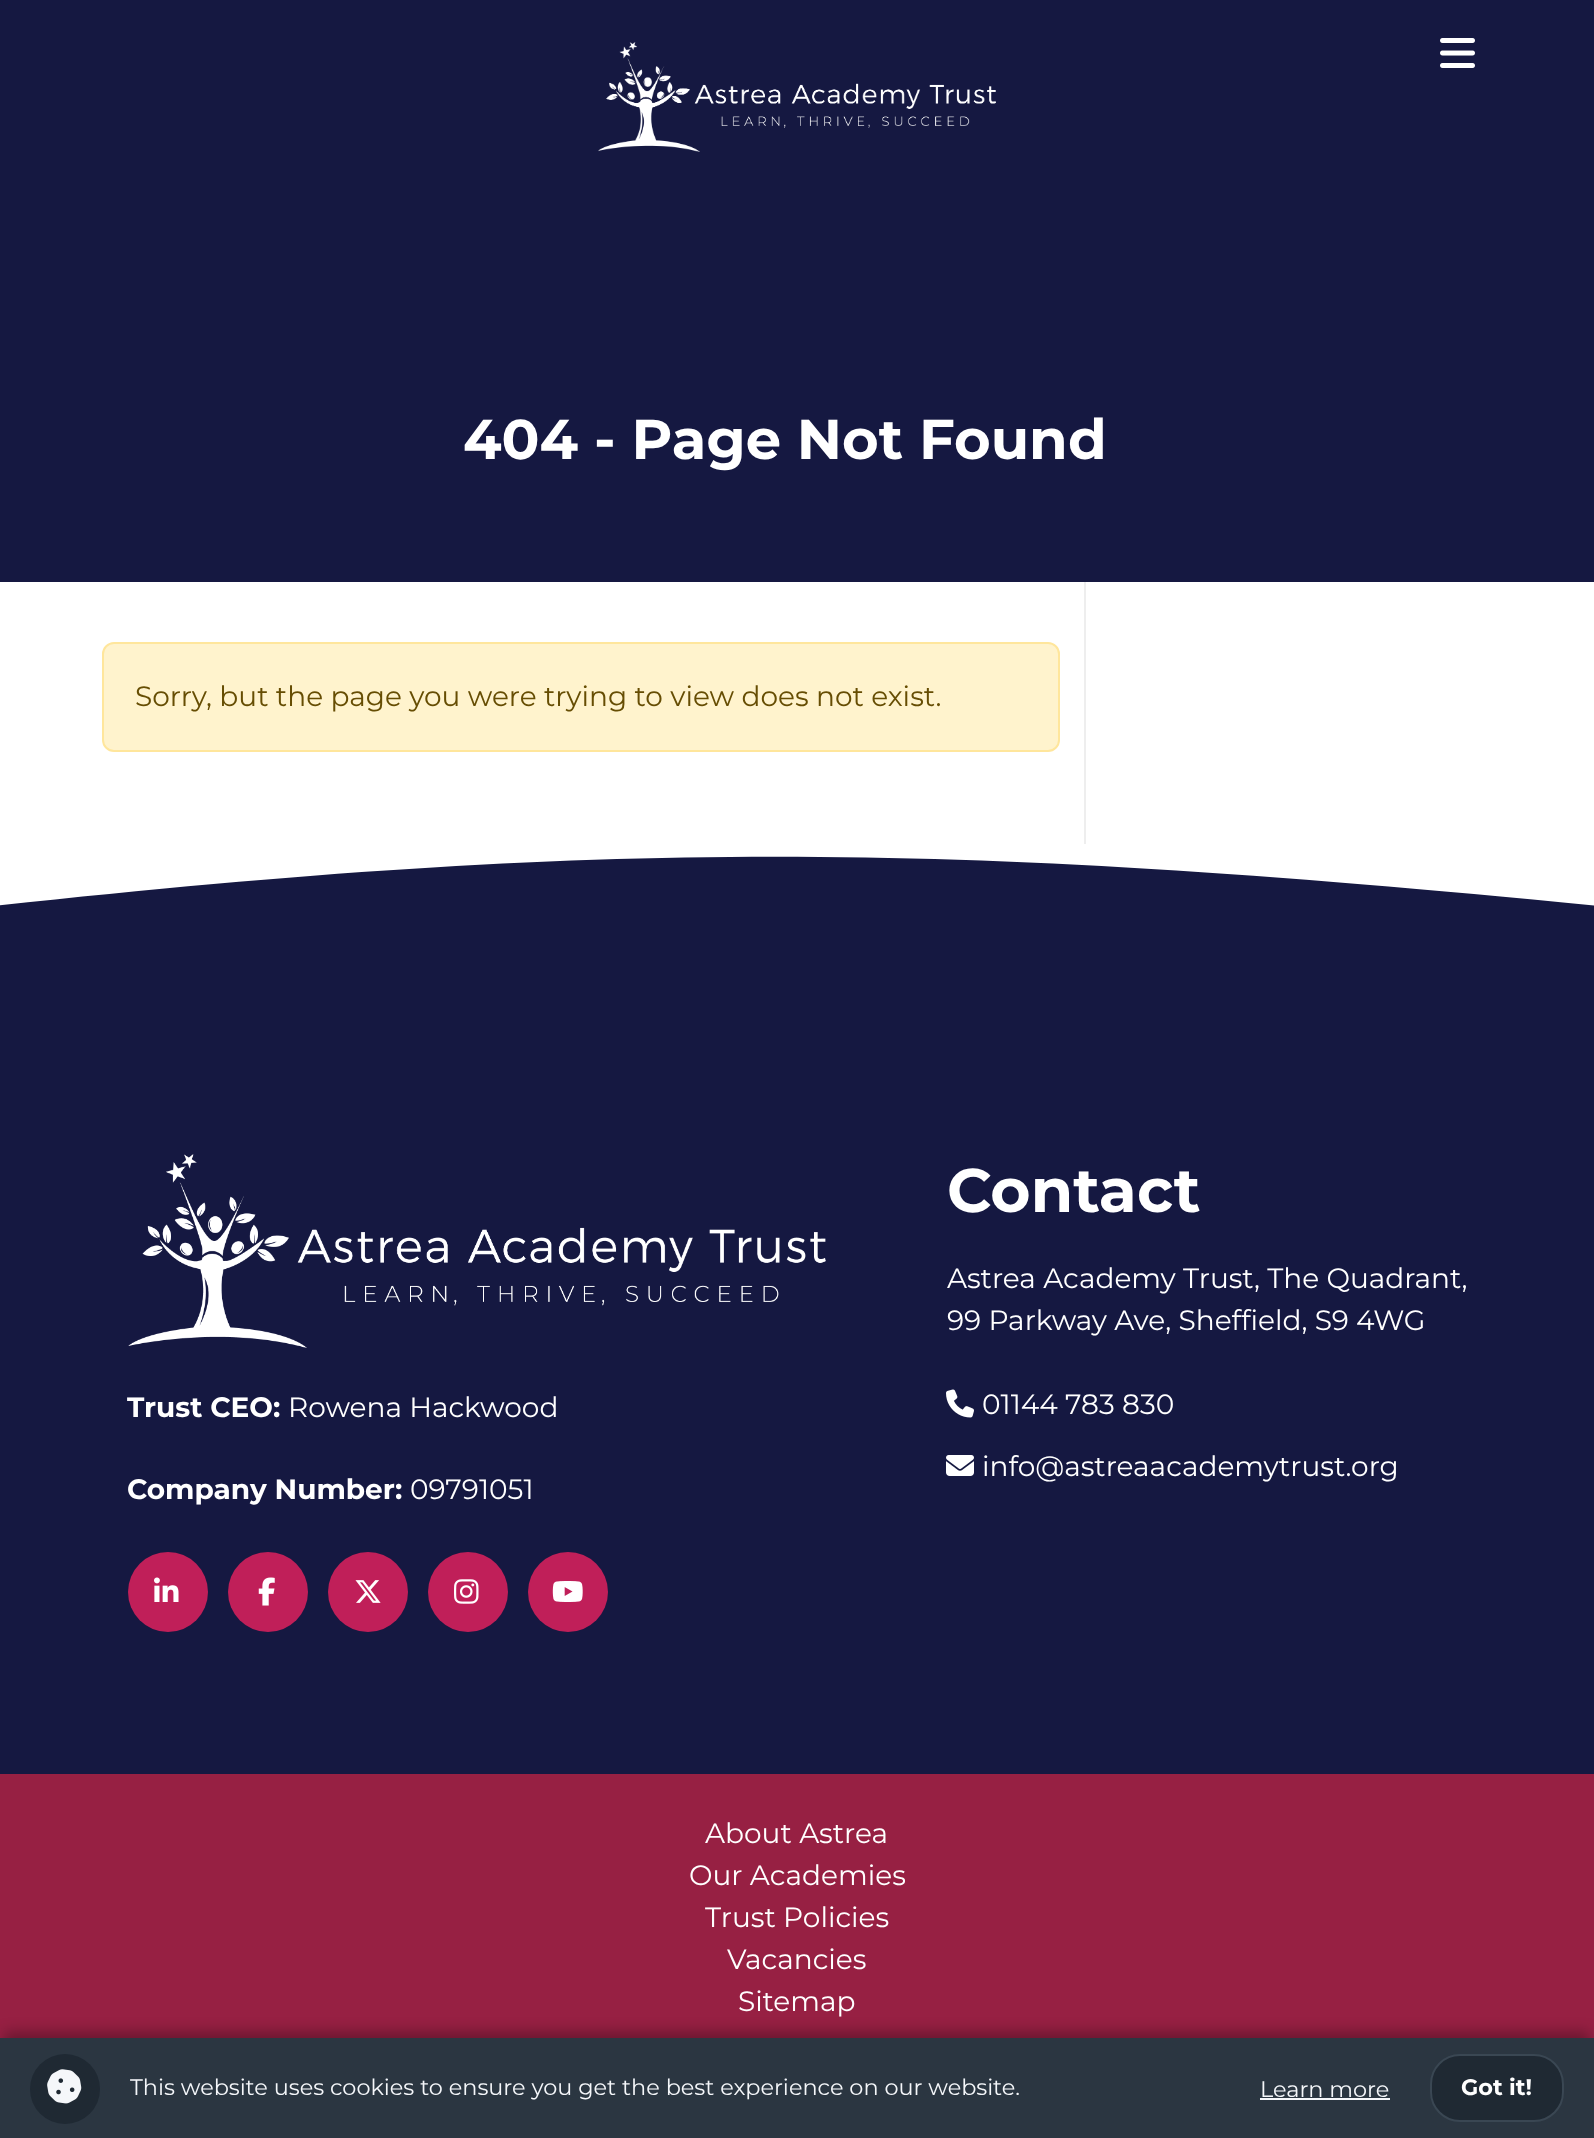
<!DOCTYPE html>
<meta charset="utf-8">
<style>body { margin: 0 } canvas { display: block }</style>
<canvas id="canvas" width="1594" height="2138"></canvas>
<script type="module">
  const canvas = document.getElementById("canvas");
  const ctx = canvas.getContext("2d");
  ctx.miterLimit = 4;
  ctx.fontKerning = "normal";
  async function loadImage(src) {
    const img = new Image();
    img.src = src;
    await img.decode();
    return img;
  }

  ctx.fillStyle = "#ffffff";
  ctx.fillRect(0, 0, 1594, 2138);
  ctx.fillStyle = "#151841";
  ctx.fillRect(0, 0, 1594, 582);
  ctx.drawImage(await loadImage("img1.png"), 598, 42, 398, 110);
  ctx.drawImage(await loadImage("img2.png"), 1440, 38, 35, 30);
  ctx.font = "bold 56px Montserrat";
  ctx.fillStyle = "#ffffff";
  ctx.fillText("404 - Page Not Found", 463, 459);
  ctx.fillStyle = "#eeeeee";
  ctx.fillRect(1084, 582, 2, 262);
  ctx.fillStyle = "#fff3cd";
  ctx.beginPath();
  ctx.roundRect(103, 643, 956, 108, 11);
  ctx.fill();
  ctx.strokeStyle = "#ffe69c";
  ctx.lineWidth = 2;
  ctx.stroke();
  ctx.font = "28px Montserrat";
  ctx.fillStyle = "#664d03";
  ctx.fillText("Sorry, but the page you were trying to view does not exist.", 135, 706);
  ctx.fillStyle = "#151841";
  ctx.fillRect(0, 856, 1594, 918);
  ctx.save();
  ctx.beginPath();
  ctx.rect(0, 844, 1594, 106);
  ctx.clip();
  ctx.fillStyle = "#ffffff";
  ctx.beginPath();
  ctx.moveTo(-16, 907);
  ctx.bezierCurveTo(599, 840, 935, 840, 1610, 907);
  ctx.lineTo(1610, 840);
  ctx.lineTo(-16, 840);
  ctx.closePath();
  ctx.fill();
  ctx.restore();
  ctx.drawImage(await loadImage("img3.png"), 128, 1154, 698, 194);
  ctx.font = "bold 28px Montserrat";
  ctx.fillStyle = "#ffffff";
  ctx.fillText("Trust CEO:", 127, 1417);
  ctx.font = "28px Montserrat";
  ctx.fillText("Rowena Hackwood", 288, 1417);
  ctx.font = "bold 28px Montserrat";
  ctx.fillText("Company Number:", 127, 1499);
  ctx.font = "28px Montserrat";
  ctx.fillText("09791051", 410, 1499);
  ctx.fillStyle = "#c01f59";
  ctx.beginPath();
  ctx.arc(168, 1592, 40, 0, Math.PI * 2);
  ctx.fill();
  ctx.drawImage(await loadImage("img4.png"), 154, 1577, 25, 25);
  ctx.beginPath();
  ctx.arc(268, 1592, 40, 0, Math.PI * 2);
  ctx.fill();
  ctx.drawImage(await loadImage("img5.png"), 258, 1577, 17, 29);
  ctx.beginPath();
  ctx.arc(368, 1592, 40, 0, Math.PI * 2);
  ctx.fill();
  ctx.drawImage(await loadImage("img6.png"), 355, 1580, 26, 23);
  ctx.beginPath();
  ctx.arc(468, 1592, 40, 0, Math.PI * 2);
  ctx.fill();
  ctx.drawImage(await loadImage("img7.png"), 454, 1579, 25, 25);
  ctx.beginPath();
  ctx.arc(568, 1592, 40, 0, Math.PI * 2);
  ctx.fill();
  ctx.drawImage(await loadImage("img8.png"), 552, 1581, 31, 21);
  ctx.font = "bold 61.5px Montserrat";
  ctx.fillStyle = "#ffffff";
  ctx.fillText("Contact", 947, 1212);
  ctx.font = "28px Montserrat";
  ctx.fillText("Astrea Academy Trust, The Quadrant,", 947, 1288);
  ctx.fillText("99 Parkway Ave, Sheffield, S9 4WG", 947, 1330);
  ctx.drawImage(await loadImage("img9.png"), 946, 1389, 28, 29);
  ctx.fillText("01144 783 830", 982, 1414);
  ctx.drawImage(await loadImage("img10.png"), 946, 1455, 28, 21);
  ctx.fillText("info@astreaacademytrust.org", 982, 1476);
  ctx.fillStyle = "#972043";
  ctx.fillRect(0, 1774, 1594, 264);
  ctx.fillStyle = "#ffffff";
  ctx.fillText("About Astrea", 705, 1843);
  ctx.fillText("Our Academies", 689, 1885);
  ctx.fillText("Trust Policies", 705, 1927);
  ctx.fillText("Vacancies", 727, 1969);
  ctx.fillText("Sitemap", 738, 2011);
  ctx.fillStyle = "rgba(0, 0, 0, 0.3)";
  ctx.filter = "blur(7px)";
  ctx.beginPath();
  ctx.rect(4, 2032, 1586, 92);
  ctx.fill();
  ctx.filter = "none";
  ctx.fillStyle = "#2b3641";
  ctx.fillRect(0, 2038, 1594, 100);
  ctx.fillStyle = "#1f2933";
  ctx.beginPath();
  ctx.arc(65, 2089, 35, 0, Math.PI * 2);
  ctx.fill();
  ctx.drawImage(await loadImage("img11.png"), 47, 2069, 35, 35);
  ctx.font = "22.4px Montserrat";
  ctx.fillStyle = "#f5f7fa";
  ctx.fillText("This website uses cookies to ensure you get the best experience on our website.", 130, 2095);
  ctx.fillText("Learn more", 1260, 2097);
  ctx.fillRect(1260, 2098, 130, 2);
  ctx.fillStyle = "#1f2933";
  ctx.beginPath();
  ctx.roundRect(1431, 2055, 132, 66, 29);
  ctx.fill();
  ctx.strokeStyle = "#3a4753";
  ctx.stroke();
  ctx.font = "bold 22.4px Montserrat";
  ctx.fillStyle = "#ffffff";
  ctx.fillText("Got it!", 1461, 2095);
</script>
